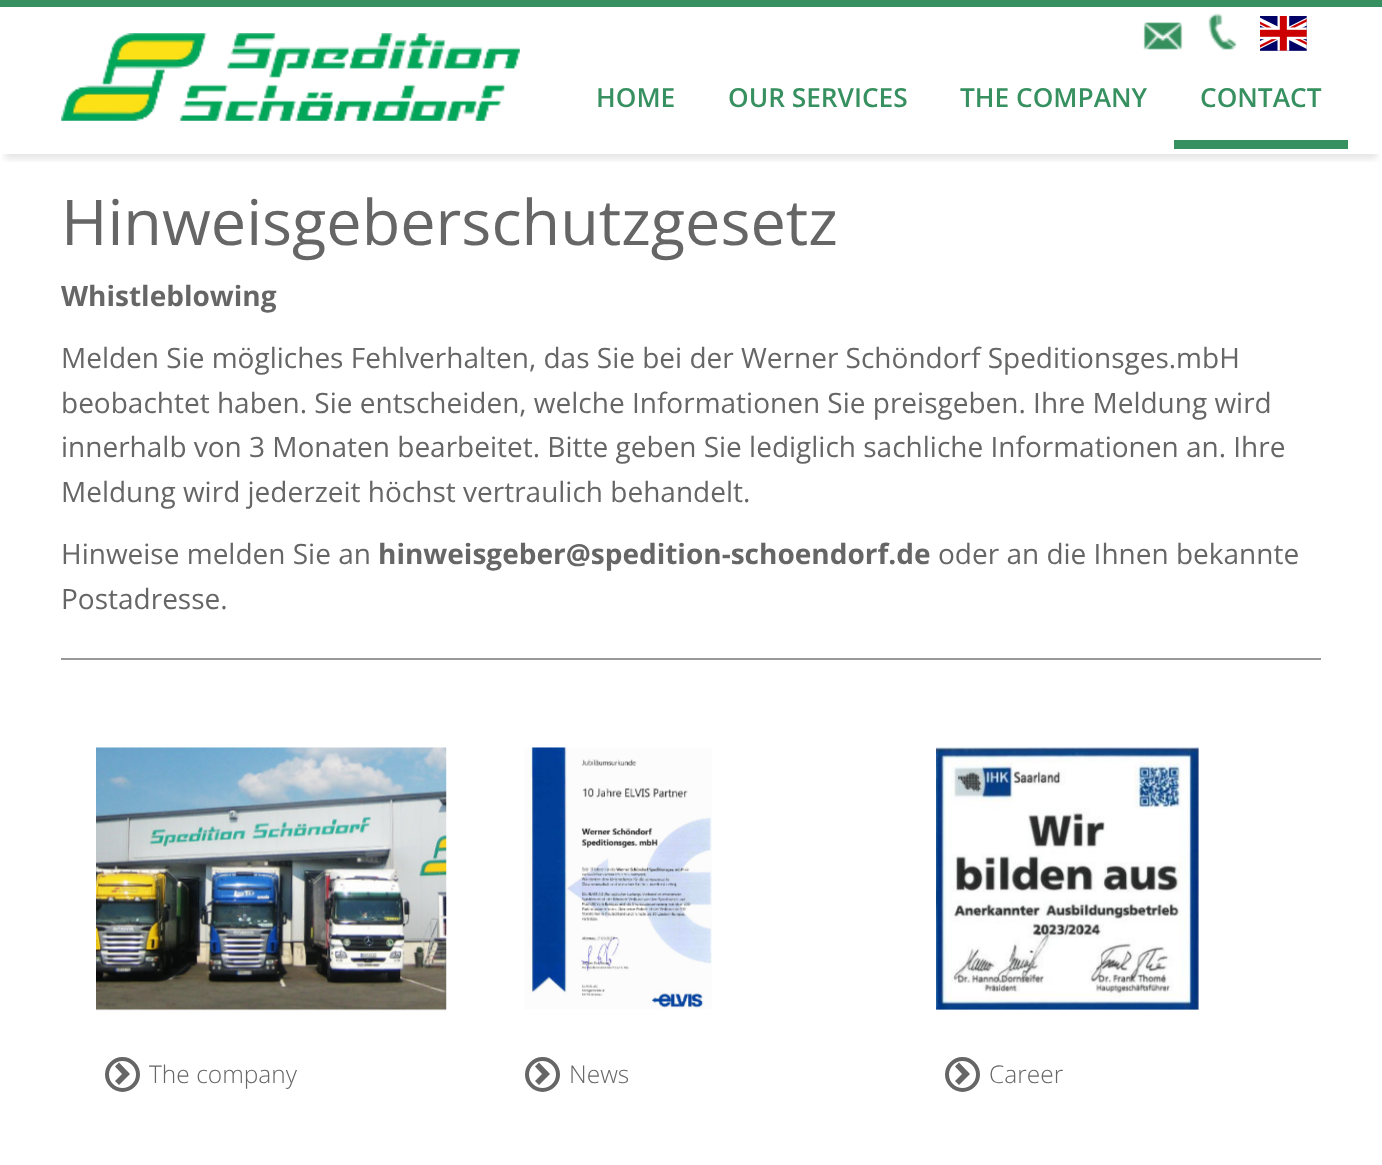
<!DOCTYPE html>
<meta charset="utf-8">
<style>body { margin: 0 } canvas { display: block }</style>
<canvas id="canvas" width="1382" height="1165"></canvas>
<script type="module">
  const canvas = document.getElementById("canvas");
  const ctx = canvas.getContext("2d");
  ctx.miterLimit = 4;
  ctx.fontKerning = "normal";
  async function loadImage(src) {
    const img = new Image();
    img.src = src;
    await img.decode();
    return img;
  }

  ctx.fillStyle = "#ffffff";
  ctx.fillRect(0, 0, 1382, 1165);
  ctx.save();
  ctx.beginPath();
  ctx.rect(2, 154, 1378, 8);
  ctx.clip();
  ctx.fillStyle = "rgba(0, 0, 0, 0.1)";
  ctx.filter = "blur(3.5px)";
  ctx.beginPath();
  ctx.rect(5, 16, 1372, 143);
  ctx.fill();
  ctx.filter = "none";
  ctx.restore();
  ctx.fillStyle = "#379060";
  ctx.fillRect(0, 0, 1382, 7);
  ctx.drawImage(await loadImage("img1.png"), 61, 33, 459, 88);
  ctx.drawImage(await loadImage("img2.png"), 1143, 22, 40, 28);
  ctx.drawImage(await loadImage("img3.png"), 1208, 13, 29, 37);
  ctx.drawImage(await loadImage("img4.png"), 1260, 16, 47, 35);
  ctx.font = "600 26.25px Open Sans";
  ctx.fillText("HOME", 596, 107);
  ctx.fillText("OUR SERVICES", 728, 107);
  ctx.fillText("THE COMPANY", 960, 107);
  ctx.fillRect(1174, 140, 174, 9);
  ctx.fillText("CONTACT", 1200, 107);
  ctx.font = "63px Open Sans";
  ctx.fillStyle = "#666666";
  ctx.fillText("Hinweisgeberschutzgesetz", 61, 245);
  ctx.font = "bold 28px Open Sans";
  ctx.fillText("Whistleblowing", 61, 306);
  ctx.font = "28px Open Sans";
  ctx.fillText("Melden Sie mögliches Fehlverhalten, das Sie bei der Werner Schöndorf Speditionsges.mbH", 61, 368);
  ctx.fillText("beobachtet haben. Sie entscheiden, welche Informationen Sie preisgeben. Ihre Meldung wird", 61, 413);
  ctx.fillText("innerhalb von 3 Monaten bearbeitet. Bitte geben Sie lediglich sachliche Informationen an. Ihre", 61, 457);
  ctx.fillText("Meldung wird jederzeit höchst vertraulich behandelt.", 61, 502);
  ctx.fillText("Hinweise melden Sie an", 61, 564);
  ctx.font = "bold 28px Open Sans";
  ctx.fillText("hinweisgeber@spedition-schoendorf.de", 378, 564);
  ctx.font = "28px Open Sans";
  ctx.fillText("oder an die Ihnen bekannte", 938, 564);
  ctx.fillText("Postadresse.", 61, 609);
  ctx.fillStyle = "#999999";
  ctx.fillRect(61, 658, 1260, 2);
  ctx.drawImage(await loadImage("img5.png"), 96, 747, 351, 264);
  ctx.beginPath();
  ctx.arc(122.5, 1074.5, 15.5, 0, Math.PI * 2);
  ctx.strokeStyle = "#666666";
  ctx.lineWidth = 4;
  ctx.stroke();
  ctx.fillStyle = "#666666";
  ctx.beginPath();
  ctx.moveTo(130, 1074);
  ctx.lineTo(119, 1085);
  ctx.lineTo(115, 1081);
  ctx.lineTo(122, 1074);
  ctx.lineTo(115, 1066.5);
  ctx.lineTo(119, 1062.5);
  ctx.closePath();
  ctx.fill();
  ctx.font = "300 24.5px Open Sans";
  ctx.fillText("The company", 149, 1083);
  ctx.drawImage(await loadImage("img6.png"), 524, 747, 188, 263);
  ctx.beginPath();
  ctx.arc(542.5, 1074.5, 15.5, 0, Math.PI * 2);
  ctx.stroke();
  ctx.beginPath();
  ctx.moveTo(550, 1074);
  ctx.lineTo(539, 1085);
  ctx.lineTo(535, 1081);
  ctx.lineTo(542, 1074);
  ctx.lineTo(535, 1066.5);
  ctx.lineTo(539, 1062.5);
  ctx.closePath();
  ctx.fill();
  ctx.fillText("News", 569, 1083);
  ctx.drawImage(await loadImage("img7.png"), 936, 747, 263, 263);
  ctx.beginPath();
  ctx.arc(962.5, 1074.5, 15.5, 0, Math.PI * 2);
  ctx.stroke();
  ctx.beginPath();
  ctx.moveTo(970, 1074);
  ctx.lineTo(959, 1085);
  ctx.lineTo(955, 1081);
  ctx.lineTo(962, 1074);
  ctx.lineTo(955, 1066.5);
  ctx.lineTo(959, 1062.5);
  ctx.closePath();
  ctx.fill();
  ctx.fillText("Career", 989, 1083);
</script>
